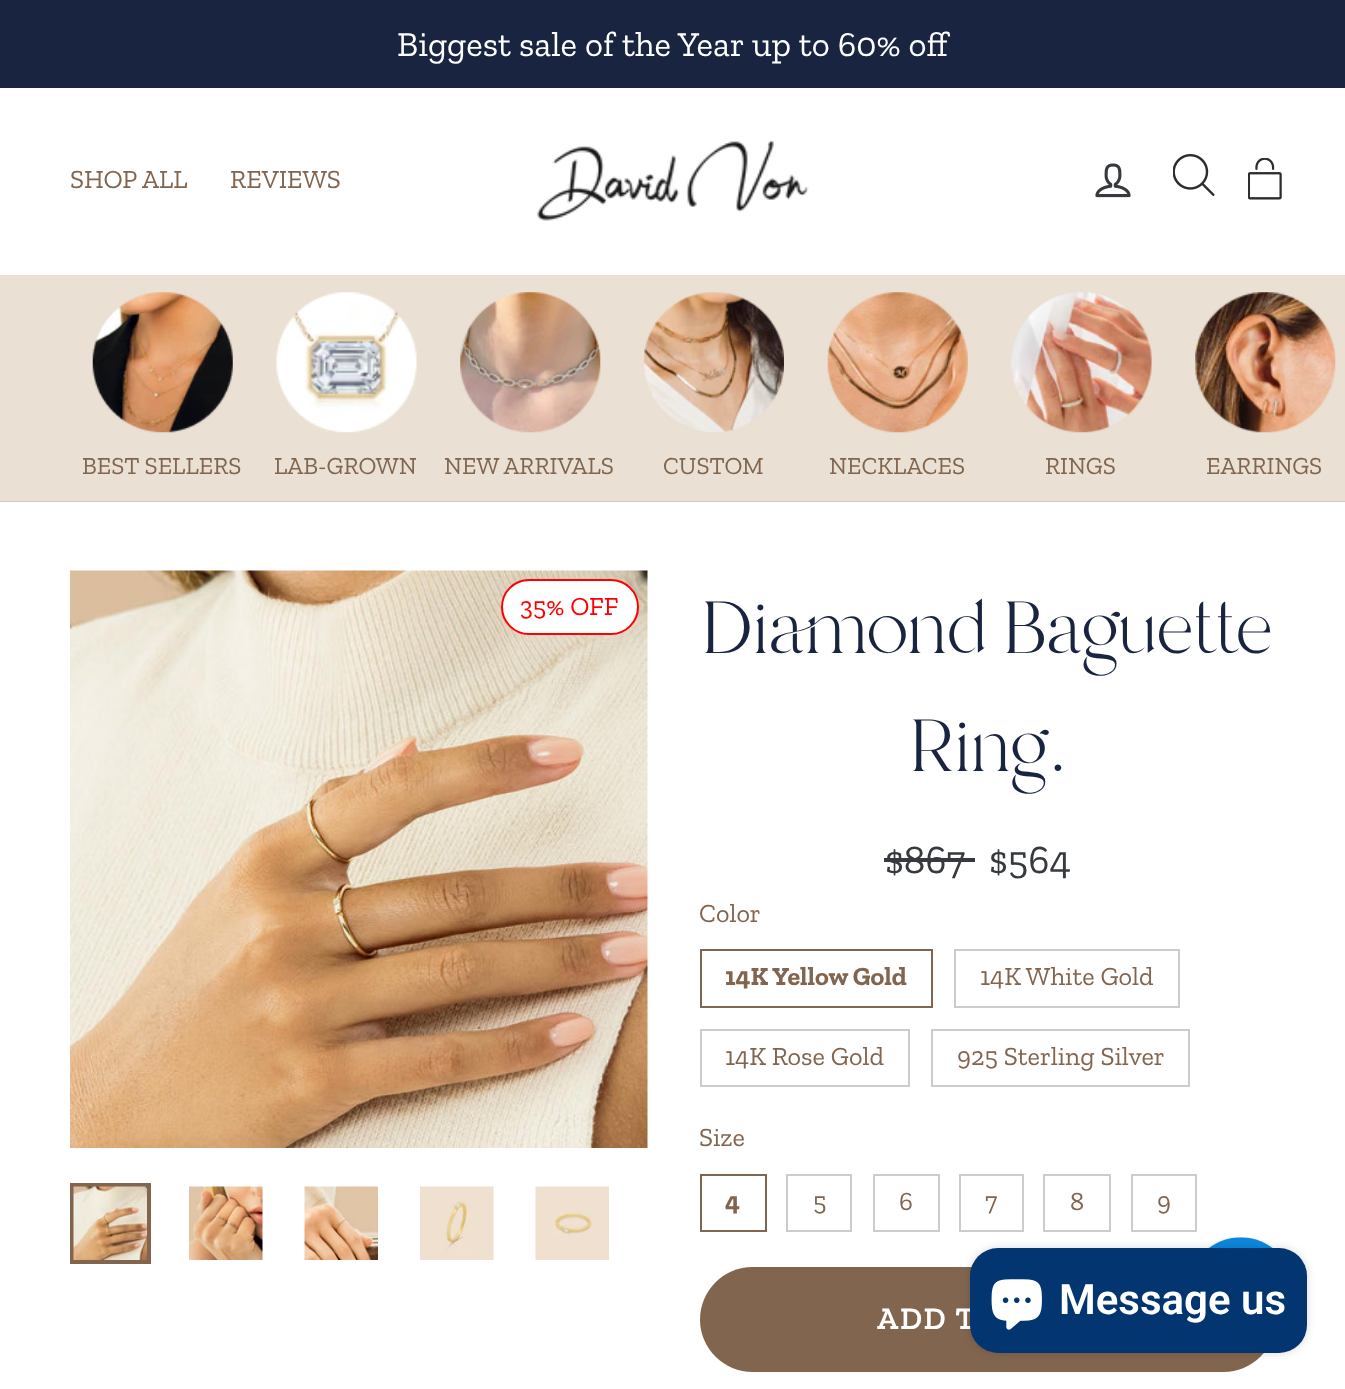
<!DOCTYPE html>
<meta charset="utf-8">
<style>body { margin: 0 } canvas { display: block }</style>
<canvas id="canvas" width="1345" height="1389"></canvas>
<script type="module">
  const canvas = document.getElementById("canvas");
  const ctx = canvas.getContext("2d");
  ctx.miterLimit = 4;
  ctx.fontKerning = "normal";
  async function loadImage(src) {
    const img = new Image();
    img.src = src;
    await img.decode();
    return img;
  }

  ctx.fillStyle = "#ffffff";
  ctx.fillRect(0, 0, 1345, 1389);
  ctx.fillStyle = "#182440";
  ctx.fillRect(0, 0, 1345, 88);
  ctx.font = "35px Zilla Slab";
  ctx.fillStyle = "#ffffff";
  ctx.fillText("Biggest sale of the Year up to 60% off", 397, 56);
  ctx.font = "26.25px Zilla Slab";
  ctx.fillStyle = "#81654f";
  ctx.fillText("SHOP ALL", 70, 188);
  ctx.fillText("REVIEWS", 230, 188);
  ctx.drawImage(await loadImage("img1.png"), 536, 140, 273, 81);
  ctx.drawImage(await loadImage("img2.png"), 1095, 163, 36, 35);
  ctx.drawImage(await loadImage("img3.png"), 1173, 154, 42, 42);
  ctx.drawImage(await loadImage("img4.png"), 1248, 158, 34, 42);
  ctx.fillStyle = "#d5c7b6";
  ctx.beginPath();
  ctx.moveTo(0, 500);
  ctx.lineTo(0, 502);
  ctx.lineTo(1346, 502);
  ctx.lineTo(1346, 277);
  ctx.lineTo(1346, 500);
  ctx.closePath();
  ctx.fill();
  ctx.fillStyle = "#eae0d3";
  ctx.fillRect(0, 275, 1345, 226);
  ctx.drawImage(await loadImage("img5.png"), 92, 292, 141, 141);
  ctx.font = "24.5px Zilla Slab";
  ctx.fillStyle = "#81654f";
  ctx.fillText("BEST SELLERS", 82, 474);
  ctx.drawImage(await loadImage("img6.png"), 276, 292, 141, 141);
  ctx.fillText("LAB-GROWN", 274, 474);
  ctx.drawImage(await loadImage("img7.png"), 460, 292, 141, 141);
  ctx.fillText("NEW ARRIVALS", 444, 474);
  ctx.drawImage(await loadImage("img8.png"), 644, 292, 140, 141);
  ctx.fillText("CUSTOM", 663, 474);
  ctx.drawImage(await loadImage("img9.png"), 827, 292, 141, 141);
  ctx.fillText("NECKLACES", 829, 474);
  ctx.drawImage(await loadImage("img10.png"), 1011, 292, 141, 141);
  ctx.fillText("RINGS", 1045, 474);
  ctx.drawImage(await loadImage("img11.png"), 1195, 292, 141, 141);
  ctx.fillText("EARRINGS", 1206, 474);
  ctx.drawImage(await loadImage("img12.png"), 70, 570, 578, 578);
  ctx.strokeStyle = "#81654f";
  ctx.lineWidth = 4;
  ctx.strokeRect(72, 1185, 77, 77);
  ctx.drawImage(await loadImage("img13.png"), 73, 1186, 74, 74);
  ctx.drawImage(await loadImage("img14.png"), 189, 1186, 74, 74);
  ctx.drawImage(await loadImage("img15.png"), 304, 1186, 74, 74);
  ctx.drawImage(await loadImage("img16.png"), 420, 1186, 74, 74);
  ctx.drawImage(await loadImage("img17.png"), 535, 1186, 74, 74);
  ctx.fillStyle = "#ffffff";
  ctx.beginPath();
  ctx.roundRect(502, 580, 136, 54, 27);
  ctx.fill();
  ctx.strokeStyle = "#ff0000";
  ctx.lineWidth = 2;
  ctx.stroke();
  ctx.font = "26.25px Zilla Slab";
  ctx.fillStyle = "#ff0000";
  ctx.fillText("35% OFF", 520, 615);
  ctx.wordSpacing = "-1px";
  ctx.font = "73.5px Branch";
  ctx.fillStyle = "#182440";
  ctx.fillText("Diamond Baguette", 701, 653);
  ctx.wordSpacing = "0px";
  ctx.fillText("Ring.", 909, 771);
  ctx.font = "40px Zilla Slab";
  ctx.fillStyle = "#36393e";
  ctx.fillText("$867", 885, 873);
  ctx.fillRect(884, 858, 91, 4);
  ctx.fillText("$564", 989, 873);
  ctx.font = "26.25px Zilla Slab";
  ctx.fillStyle = "#81654f";
  ctx.fillText("Color", 699, 922);
  ctx.strokeStyle = "#81654f";
  ctx.strokeRect(701, 950, 231, 57);
  ctx.font = "bold 26.25px Zilla Slab";
  ctx.fillText("14K Yellow Gold", 725, 985);
  ctx.strokeStyle = "#cccccc";
  ctx.strokeRect(955, 950, 224, 57);
  ctx.font = "26.25px Zilla Slab";
  ctx.fillText("14K White Gold", 980, 985);
  ctx.strokeRect(701, 1030, 208, 56);
  ctx.fillText("14K Rose Gold", 725, 1065);
  ctx.strokeRect(932, 1030, 257, 56);
  ctx.fillText("925 Sterling Silver", 957, 1065);
  ctx.fillText("Size", 699, 1146);
  ctx.strokeStyle = "#81654f";
  ctx.strokeRect(701, 1175, 65, 56);
  ctx.font = "bold 26.25px Zilla Slab";
  ctx.fillText("4", 725, 1210);
  ctx.strokeStyle = "#cccccc";
  ctx.strokeRect(787, 1175, 64, 56);
  ctx.font = "26.25px Zilla Slab";
  ctx.fillText("5", 813, 1210);
  ctx.strokeRect(874, 1175, 65, 56);
  ctx.fillText("6", 899, 1210);
  ctx.strokeRect(960, 1175, 63, 56);
  ctx.fillText("7", 985, 1210);
  ctx.strokeRect(1044, 1175, 66, 56);
  ctx.fillText("8", 1070, 1210);
  ctx.strokeRect(1132, 1175, 64, 56);
  ctx.fillText("9", 1157, 1210);
  ctx.beginPath();
  ctx.roundRect(700, 1267, 576, 105, 52.5);
  ctx.fill();
  ctx.letterSpacing = "1.75px";
  ctx.font = "600 31.5px Zilla Slab";
  ctx.fillStyle = "#ffffff";
  ctx.fillText("ADD T", 877, 1329);
  ctx.drawImage(await loadImage("img18.png"), 1208, 1237, 65, 11);
  ctx.fillStyle = "rgba(0, 0, 0, 0.15)";
  ctx.filter = "blur(4.5px)";
  ctx.beginPath();
  ctx.roundRect(970, 1248, 337, 105, 28);
  ctx.fill();
  ctx.filter = "none";
  ctx.fillStyle = "#033570";
  ctx.beginPath();
  ctx.roundRect(970, 1248, 337, 105, 28);
  ctx.fill();
  ctx.drawImage(await loadImage("img19.png"), 991, 1279, 51, 51);
  ctx.letterSpacing = "0px";
  ctx.font = "600 42px Roboto";
  ctx.fillStyle = "#ffffff";
  ctx.fillText("Message us", 1059, 1314);
</script>
